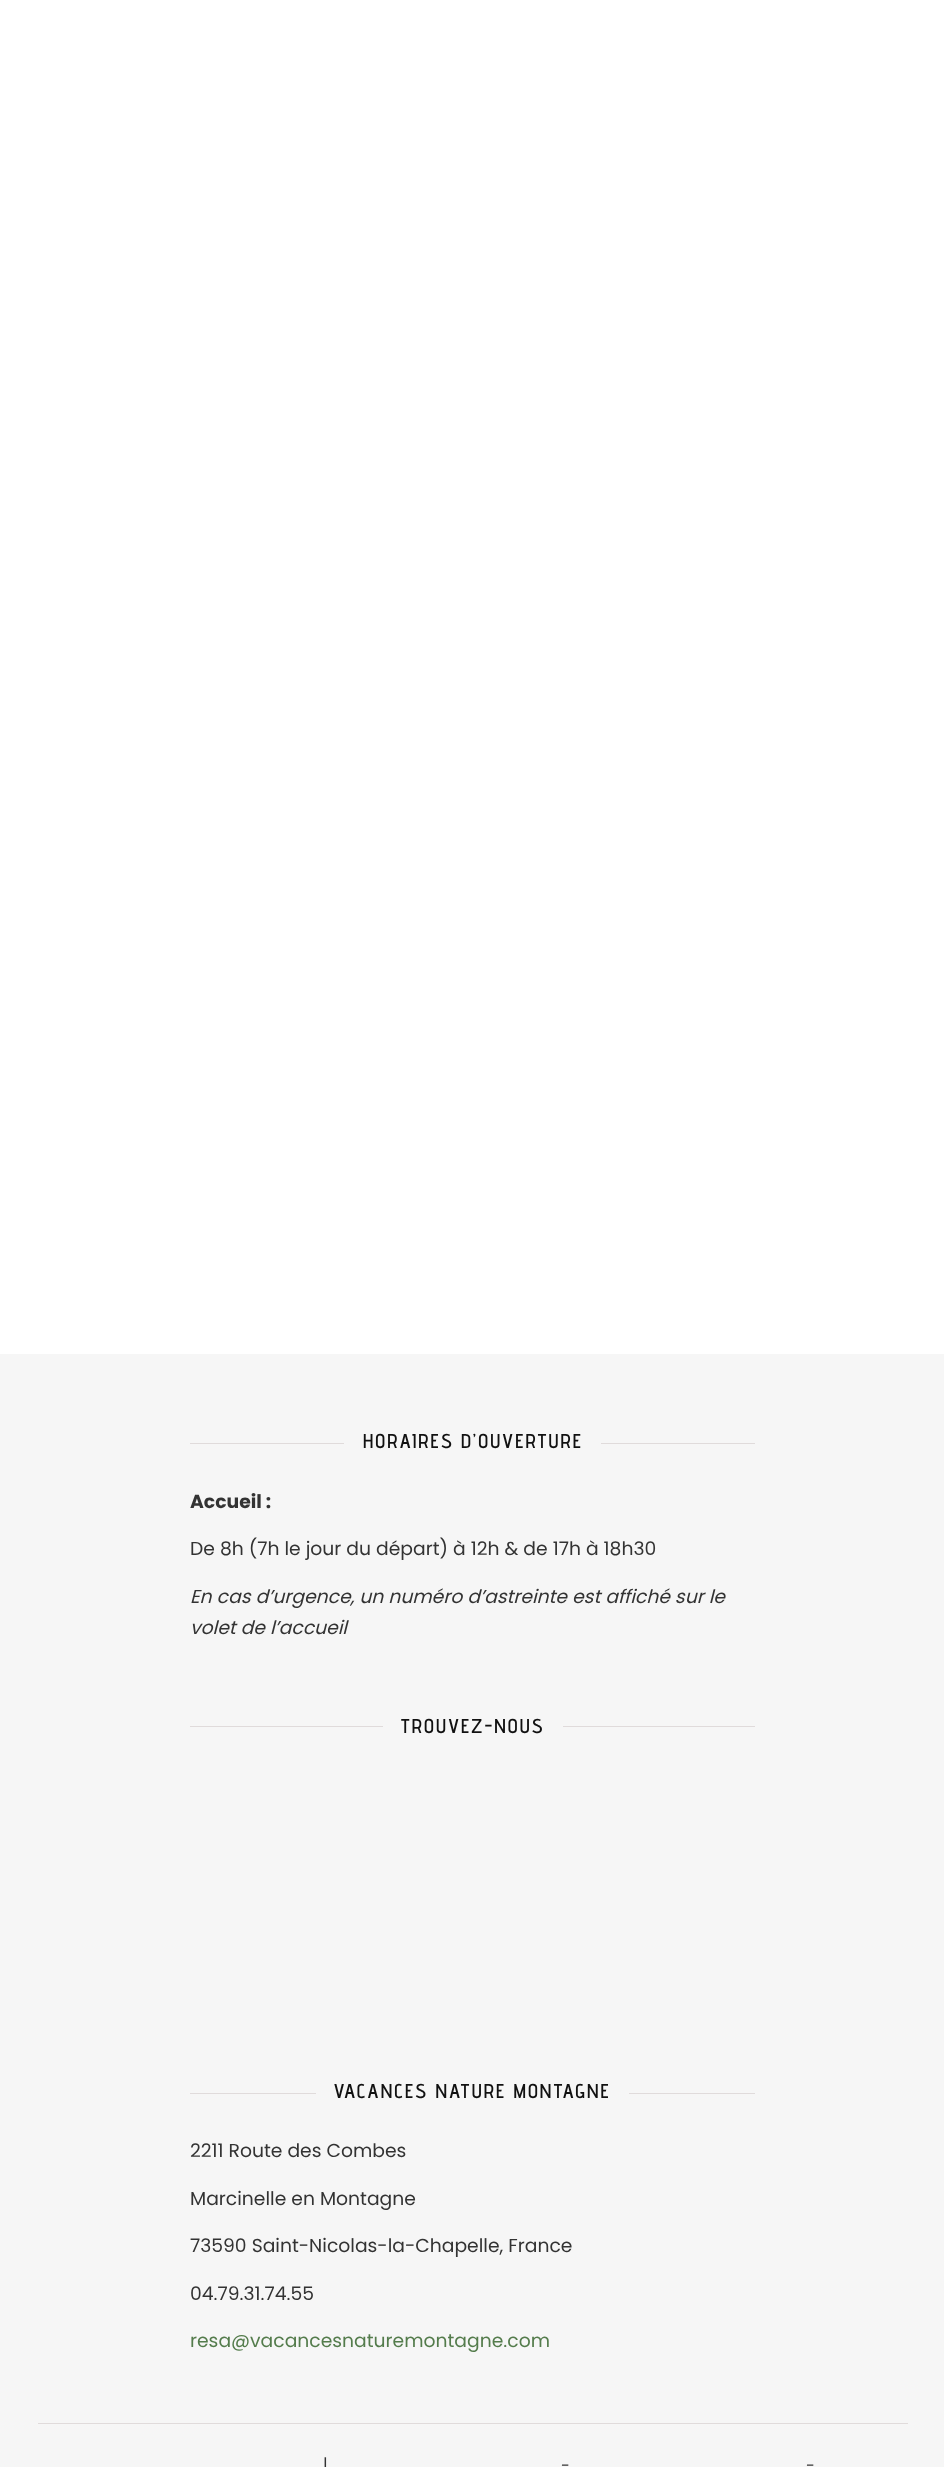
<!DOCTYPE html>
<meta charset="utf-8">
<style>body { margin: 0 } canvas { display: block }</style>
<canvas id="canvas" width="944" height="2467"></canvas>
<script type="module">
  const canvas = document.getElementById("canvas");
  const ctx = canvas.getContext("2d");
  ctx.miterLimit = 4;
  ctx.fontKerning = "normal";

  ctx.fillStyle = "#ffffff";
  ctx.fillRect(0, 0, 944, 2467);
  ctx.fillStyle = "#f6f6f6";
  ctx.fillRect(0, 1354, 944, 1113);
  ctx.fillStyle = "#e0dbdb";
  ctx.fillRect(38, 2423, 870, 1);
  ctx.fillRect(190, 1443, 154, 1);
  ctx.letterSpacing = "1.9px";
  ctx.font = "600 20px Advent Pro";
  ctx.fillStyle = "#111111";
  ctx.fillText("HORAIRES D’OUVERTURE", 363, 1448);
  ctx.fillStyle = "#e0dbdb";
  ctx.fillRect(601, 1443, 154, 1);
  ctx.letterSpacing = "0px";
  ctx.font = "bold 18.75px Poppins";
  ctx.fillStyle = "#333333";
  ctx.fillText("Accueil :", 190, 1508);
  ctx.font = "18.75px Poppins";
  ctx.fillText("De 8h (7h le jour du départ) à 12h & de 17h à 18h30", 190, 1555);
  ctx.font = "italic 18.75px Poppins";
  ctx.fillText("En cas d’urgence, un numéro d’astreinte est affiché sur le", 190, 1603);
  ctx.fillText("volet de l’accueil", 190, 1634);
  ctx.fillStyle = "#e0dbdb";
  ctx.fillRect(190, 1726, 193, 1);
  ctx.letterSpacing = "1.9px";
  ctx.font = "600 20px Advent Pro";
  ctx.fillStyle = "#111111";
  ctx.fillText("TROUVEZ-NOUS", 401, 1733);
  ctx.fillStyle = "#e0dbdb";
  ctx.fillRect(563, 1726, 192, 1);
  ctx.fillRect(190, 2093, 126, 1);
  ctx.fillStyle = "#111111";
  ctx.fillText("VACANCES NATURE MONTAGNE", 334, 2098);
  ctx.fillStyle = "#e0dbdb";
  ctx.fillRect(629, 2093, 126, 1);
  ctx.letterSpacing = "0px";
  ctx.font = "18.75px Poppins";
  ctx.fillStyle = "#333333";
  ctx.fillText("2211 Route des Combes", 190, 2157);
  ctx.fillText("Marcinelle en Montagne", 190, 2205);
  ctx.fillText("73590 Saint-Nicolas-la-Chapelle, France", 190, 2252);
  ctx.fillText("04.79.31.74.55", 190, 2300);
  ctx.fillStyle = "#547c4c";
  ctx.fillText("resa@vacancesnaturemontagne.com", 190, 2347);
  ctx.font = "16px Poppins";
  ctx.fillStyle = "#333333";
  ctx.fillText("|", 323, 2470);
  ctx.fillText("-", 561, 2471);
  ctx.fillText("-", 806, 2471);
</script>
